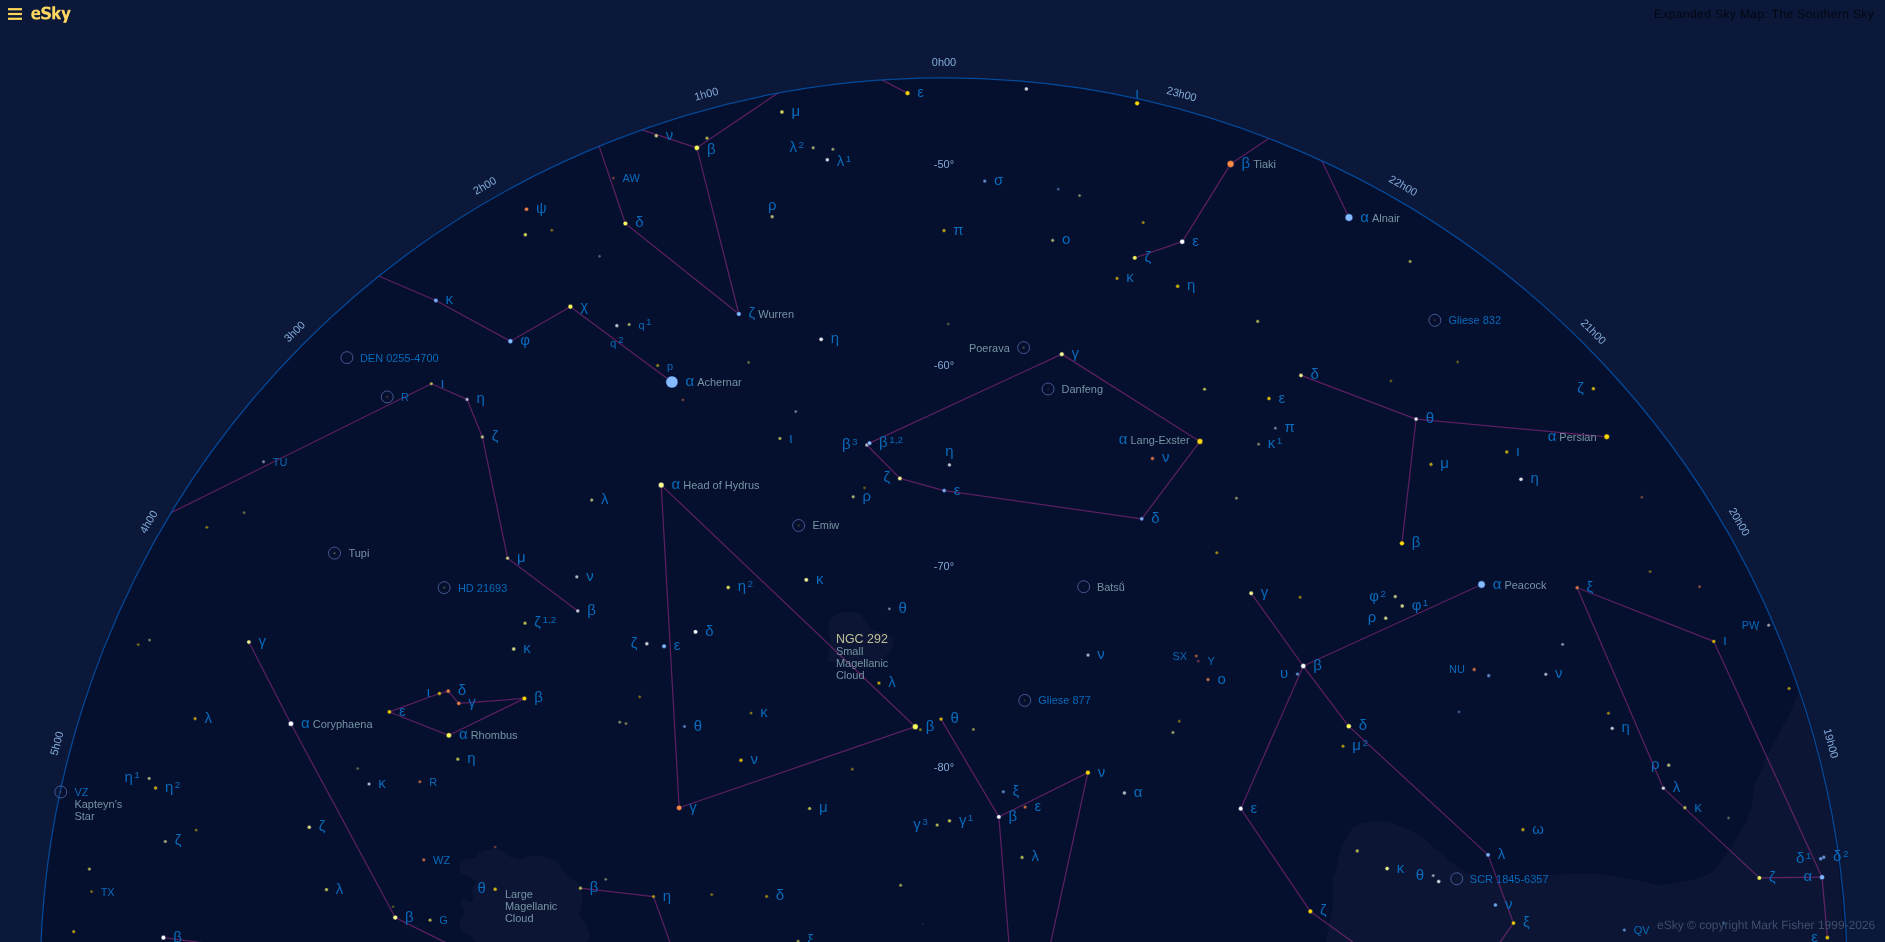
<!DOCTYPE html>
<meta charset="utf-8">
<style>body { margin: 0 } canvas { display: block }</style>
<canvas id="canvas" width="1885" height="942"></canvas>
<script type="module">
  const canvas = document.getElementById("canvas");
  const ctx = canvas.getContext("2d");
  ctx.miterLimit = 4;
  ctx.fontKerning = "normal";
  async function loadImage(src) {
    const img = new Image();
    img.src = src;
    await img.decode();
    return img;
  }

  ctx.fillStyle = "#0b1839";
  ctx.fillRect(0, 0, 1885, 942);
  ctx.drawImage(await loadImage("img1.png"), 8, 8, 14, 12);
  ctx.drawImage(await loadImage("img2.png"), 31, 6, 40, 17);
  ctx.letterSpacing = "0.4px";
  ctx.font = "12px Liberation Sans";
  ctx.fillStyle = "#030711";
  ctx.fillText("Expanded Sky Map: The Southern Sky", 1654, 18);
  ctx.drawImage(await loadImage("img3.png"), 40, 58, 1809, 884);
  ctx.letterSpacing = "0px";
  ctx.fillStyle = "#3d4f6c";
  ctx.fillText("eSky © copyright Mark Fisher 1999-2026", 1657, 929);
</script>
